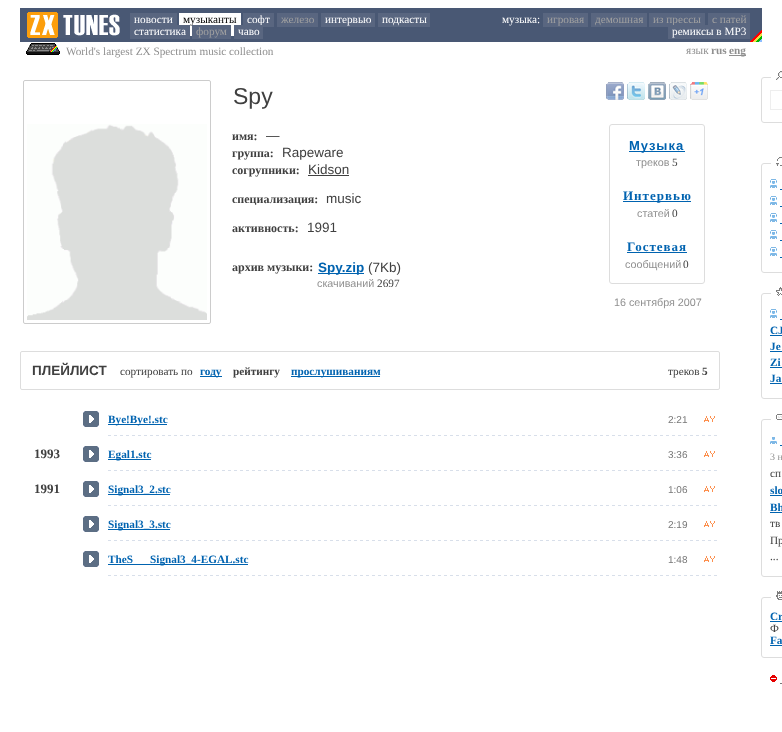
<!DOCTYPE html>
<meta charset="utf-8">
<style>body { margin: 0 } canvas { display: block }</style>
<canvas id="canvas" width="782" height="732"></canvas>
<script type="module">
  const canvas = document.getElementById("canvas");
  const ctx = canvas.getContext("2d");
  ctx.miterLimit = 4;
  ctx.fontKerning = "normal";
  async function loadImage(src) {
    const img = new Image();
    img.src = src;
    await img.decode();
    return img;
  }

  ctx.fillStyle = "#ffffff";
  ctx.fillRect(0, 0, 782, 732);
  ctx.fillStyle = "#495874";
  ctx.fillRect(20, 8, 730, 34);
  ctx.drawImage(await loadImage("img1.png"), 27, 12, 93, 26);
  ctx.fillRect(750, 8, 12, 22);
  ctx.drawImage(await loadImage("img2.png"), 750, 30, 12, 12);
  ctx.fillStyle = "#596680";
  ctx.fillRect(130, 13, 47, 12);
  ctx.font = "11.25px Liberation Serif";
  ctx.fillStyle = "#ffffff";
  ctx.fillText("новости", 134, 23);
  ctx.fillRect(179, 13, 62, 23);
  ctx.fillStyle = "#000000";
  ctx.fillText("музыканты", 183, 23);
  ctx.fillStyle = "#596680";
  ctx.fillRect(243, 13, 31, 14);
  ctx.fillStyle = "#ffffff";
  ctx.fillText("софт", 247, 23);
  ctx.fillStyle = "#596680";
  ctx.fillRect(277, 13, 41, 14);
  ctx.fillStyle = "#a0a0a0";
  ctx.fillText("железо", 281, 23);
  ctx.fillStyle = "#596680";
  ctx.fillRect(321, 13, 54, 14);
  ctx.fillStyle = "#ffffff";
  ctx.fillText("интервью", 325, 23);
  ctx.fillStyle = "#596680";
  ctx.fillRect(378, 13, 52, 14);
  ctx.fillStyle = "#ffffff";
  ctx.fillText("подкасты", 382, 23);
  ctx.fillStyle = "#596680";
  ctx.fillRect(130, 25, 60, 14);
  ctx.fillStyle = "#ffffff";
  ctx.fillText("статистика", 134, 35);
  ctx.fillStyle = "#596680";
  ctx.fillRect(192, 25, 39, 14);
  ctx.fillStyle = "#a0a0a0";
  ctx.fillText("форум", 196, 35);
  ctx.fillStyle = "#596680";
  ctx.fillRect(234, 25, 29, 14);
  ctx.fillStyle = "#ffffff";
  ctx.fillText("чаво", 238, 35);
  ctx.fillText("музыка:", 502, 23);
  ctx.fillStyle = "#596680";
  ctx.fillRect(543, 13, 45, 14);
  ctx.fillStyle = "#a0a0a0";
  ctx.fillText("игровая", 547, 23);
  ctx.fillStyle = "#596680";
  ctx.fillRect(591, 13, 56, 14);
  ctx.fillStyle = "#a0a0a0";
  ctx.fillText("демошная", 595, 23);
  ctx.fillStyle = "#596680";
  ctx.fillRect(649, 13, 56, 14);
  ctx.fillStyle = "#a0a0a0";
  ctx.fillText("из прессы", 653, 23);
  ctx.fillStyle = "#596680";
  ctx.fillRect(708, 13, 42, 12);
  ctx.fillStyle = "#a0a0a0";
  ctx.fillText("с патей", 712, 23);
  ctx.fillStyle = "#596680";
  ctx.fillRect(668, 25, 82, 14);
  ctx.fillStyle = "#ffffff";
  ctx.fillText("ремиксы в MP3", 672, 35);
  ctx.drawImage(await loadImage("img3.png"), 26, 43, 34, 12);
  ctx.fillStyle = "#909090";
  ctx.fillText("World's largest ZX Spectrum music collection", 66, 55);
  ctx.fillText("язык", 686, 54);
  ctx.font = "bold 11.25px Liberation Serif";
  ctx.fillText("rus", 711, 54);
  ctx.fillRect(729, 55, 17, 1);
  ctx.fillText("eng", 729, 54);
  ctx.beginPath();
  ctx.roundRect(23.5, 80.5, 187, 243, 1.5);
  ctx.strokeStyle = "#cccccc";
  ctx.stroke();
  ctx.drawImage(await loadImage("img4.png"), 27, 124, 180, 196);
  ctx.font = "23px Liberation Sans";
  ctx.fillStyle = "#404040";
  ctx.fillText("Spy", 233, 104);
  ctx.font = "bold 12px Liberation Serif";
  ctx.fillText("имя:", 232, 140);
  ctx.font = "13.5px Liberation Sans";
  ctx.fillText("—", 266, 140);
  ctx.font = "bold 12px Liberation Serif";
  ctx.fillText("группа:", 232, 157);
  ctx.font = "13.5px Liberation Sans";
  ctx.fillText("Rapeware", 282, 157);
  ctx.font = "bold 12px Liberation Serif";
  ctx.fillText("согрупники:", 232, 174);
  ctx.font = "13.5px Liberation Sans";
  ctx.fillText("Kidson", 308, 174);
  ctx.fillRect(308, 175, 41, 1);
  ctx.font = "bold 12px Liberation Serif";
  ctx.fillText("специализация:", 232, 203);
  ctx.font = "13.5px Liberation Sans";
  ctx.fillText("music", 326, 203);
  ctx.font = "bold 12px Liberation Serif";
  ctx.fillText("активность:", 232, 232);
  ctx.font = "13.5px Liberation Sans";
  ctx.fillText("1991", 307, 232);
  ctx.font = "bold 12px Liberation Serif";
  ctx.fillText("архив музыки:", 232, 271);
  ctx.fillStyle = "#0063b0";
  ctx.fillRect(318, 273, 46, 1);
  ctx.font = "bold 13.5px Liberation Sans";
  ctx.fillText("Spy.zip", 318, 272);
  ctx.font = "13.5px Liberation Sans";
  ctx.fillStyle = "#404040";
  ctx.fillText("(7Kb)", 368, 272);
  ctx.font = "10.75px Liberation Sans";
  ctx.fillStyle = "#909090";
  ctx.fillText("скачиваний", 317, 287);
  ctx.font = "11.25px Liberation Serif";
  ctx.fillStyle = "#404040";
  ctx.fillText("2697", 377, 287);
  ctx.drawImage(await loadImage("img5.png"), 606, 82, 18, 18);
  ctx.drawImage(await loadImage("img6.png"), 627, 82, 18, 18);
  ctx.drawImage(await loadImage("img7.png"), 648, 82, 18, 18);
  ctx.drawImage(await loadImage("img8.png"), 669, 82, 18, 18);
  ctx.drawImage(await loadImage("img9.png"), 690, 82, 18, 18);
  ctx.beginPath();
  ctx.roundRect(609.5, 124.5, 95, 159, 2.5);
  ctx.strokeStyle = "#dddddd";
  ctx.stroke();
  ctx.fillStyle = "#0063b0";
  ctx.fillRect(629, 151, 56, 1);
  ctx.letterSpacing = "1px";
  ctx.font = "bold 13px Liberation Sans";
  ctx.fillText("Музыка", 629, 150);
  ctx.letterSpacing = "0px";
  ctx.font = "10.75px Liberation Sans";
  ctx.fillStyle = "#909090";
  ctx.fillText("треков", 636, 166);
  ctx.font = "11.25px Liberation Serif";
  ctx.fillStyle = "#404040";
  ctx.fillText("5", 672, 166);
  ctx.fillStyle = "#0063b0";
  ctx.fillRect(623, 201, 68, 1);
  ctx.letterSpacing = "1px";
  ctx.font = "bold 13px Liberation Serif";
  ctx.fillText("Интервью", 623, 200);
  ctx.letterSpacing = "0px";
  ctx.font = "10.75px Liberation Sans";
  ctx.fillStyle = "#909090";
  ctx.fillText("статей", 637, 217);
  ctx.font = "11.25px Liberation Serif";
  ctx.fillStyle = "#404040";
  ctx.fillText("0", 672, 217);
  ctx.letterSpacing = "1px";
  ctx.font = "bold 13px Liberation Serif";
  ctx.fillStyle = "#0063b0";
  ctx.fillText("Гостевая", 627, 251);
  ctx.fillRect(627, 252, 60, 1);
  ctx.letterSpacing = "0px";
  ctx.font = "10.75px Liberation Sans";
  ctx.fillStyle = "#909090";
  ctx.fillText("сообщений", 625, 268);
  ctx.font = "11.25px Liberation Serif";
  ctx.fillStyle = "#404040";
  ctx.fillText("0", 683, 268);
  ctx.font = "10.75px Liberation Sans";
  ctx.fillStyle = "#909090";
  ctx.fillText("16 сентября 2007", 614, 306);
  ctx.beginPath();
  ctx.roundRect(20.5, 351.5, 699, 38, 1.5);
  ctx.stroke();
  ctx.font = "bold 13.5px Liberation Sans";
  ctx.fillStyle = "#404040";
  ctx.fillText("ПЛЕЙЛИСТ", 32, 375);
  ctx.font = "11.25px Liberation Serif";
  ctx.fillText("сортировать по", 120, 375);
  ctx.fillStyle = "#0063b0";
  ctx.fillRect(200, 376, 22, 1);
  ctx.font = "bold 11.25px Liberation Serif";
  ctx.fillText("году", 200, 375);
  ctx.fillStyle = "#404040";
  ctx.fillText("рейтингу", 233, 375);
  ctx.fillStyle = "#0063b0";
  ctx.fillRect(291, 376, 89, 1);
  ctx.fillText("прослушиваниям", 291, 375);
  ctx.font = "11.25px Liberation Serif";
  ctx.fillStyle = "#404040";
  ctx.fillText("треков", 668, 375);
  ctx.font = "bold 11.25px Liberation Serif";
  ctx.fillText("5", 702, 375);
  ctx.drawImage(await loadImage("img10.png"), 83, 411, 16, 16);
  ctx.fillStyle = "#0063b0";
  ctx.fillRect(108, 424, 59, 1);
  ctx.fillText("Bye!Bye!.stc", 108, 423);
  ctx.font = "10px Liberation Sans";
  ctx.fillStyle = "#777777";
  ctx.fillText("2:21", 668, 423);
  ctx.drawImage(await loadImage("img11.png"), 704, 416, 11, 6);
  ctx.drawImage(await loadImage("img12.png"), 108, 435, 609, 1);
  ctx.font = "bold 13px Liberation Serif";
  ctx.fillStyle = "#404040";
  ctx.fillText("1993", 34, 458);
  ctx.drawImage(await loadImage("img10.png"), 83, 446, 16, 16);
  ctx.fillStyle = "#0063b0";
  ctx.fillRect(108, 459, 43, 1);
  ctx.font = "bold 11.25px Liberation Serif";
  ctx.fillText("Egal1.stc", 108, 458);
  ctx.font = "10px Liberation Sans";
  ctx.fillStyle = "#777777";
  ctx.fillText("3:36", 668, 458);
  ctx.drawImage(await loadImage("img11.png"), 704, 451, 11, 6);
  ctx.drawImage(await loadImage("img12.png"), 108, 470, 609, 1);
  ctx.font = "bold 13px Liberation Serif";
  ctx.fillStyle = "#404040";
  ctx.fillText("1991", 34, 493);
  ctx.drawImage(await loadImage("img10.png"), 83, 481, 16, 16);
  ctx.fillStyle = "#0063b0";
  ctx.fillRect(108, 494, 62, 1);
  ctx.font = "bold 11.25px Liberation Serif";
  ctx.fillText("Signal3_2.stc", 108, 493);
  ctx.font = "10px Liberation Sans";
  ctx.fillStyle = "#777777";
  ctx.fillText("1:06", 668, 493);
  ctx.drawImage(await loadImage("img11.png"), 704, 486, 11, 6);
  ctx.drawImage(await loadImage("img12.png"), 108, 505, 609, 1);
  ctx.drawImage(await loadImage("img10.png"), 83, 516, 16, 16);
  ctx.fillStyle = "#0063b0";
  ctx.fillRect(108, 529, 62, 1);
  ctx.font = "bold 11.25px Liberation Serif";
  ctx.fillText("Signal3_3.stc", 108, 528);
  ctx.font = "10px Liberation Sans";
  ctx.fillStyle = "#777777";
  ctx.fillText("2:19", 668, 528);
  ctx.drawImage(await loadImage("img11.png"), 704, 521, 11, 6);
  ctx.drawImage(await loadImage("img12.png"), 108, 540, 609, 1);
  ctx.drawImage(await loadImage("img10.png"), 83, 551, 16, 16);
  ctx.font = "bold 11.25px Liberation Serif";
  ctx.fillStyle = "#0063b0";
  ctx.fillText("TheS", 108, 563);
  ctx.fillRect(108, 564, 140, 1);
  ctx.fillText("Signal3_4-EGAL.stc", 150, 563);
  ctx.font = "10px Liberation Sans";
  ctx.fillStyle = "#777777";
  ctx.fillText("1:48", 668, 563);
  ctx.drawImage(await loadImage("img11.png"), 704, 556, 11, 6);
  ctx.drawImage(await loadImage("img12.png"), 108, 575, 609, 1);
  ctx.beginPath();
  ctx.roundRect(761.5, 77.5, 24, 45, 2.5);
  ctx.stroke();
  ctx.fillStyle = "#ffffff";
  ctx.fillRect(771, 77, 11, 1);
  ctx.drawImage(await loadImage("img13.png"), 776, 71, 6, 9);
  ctx.strokeStyle = "#eeeeee";
  ctx.strokeRect(770.5, 90.5, 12, 19);
  ctx.beginPath();
  ctx.roundRect(761.5, 163.5, 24, 109, 2.5);
  ctx.strokeStyle = "#dddddd";
  ctx.stroke();
  ctx.fillRect(771, 163, 11, 1);
  ctx.drawImage(await loadImage("img14.png"), 776, 157, 6, 9);
  ctx.drawImage(await loadImage("img15.png"), 770, 179, 7, 9);
  ctx.fillStyle = "#0063b0";
  ctx.fillRect(780, 189, 2, 1);
  ctx.drawImage(await loadImage("img15.png"), 770, 196, 7, 9);
  ctx.fillRect(780, 206, 2, 1);
  ctx.drawImage(await loadImage("img15.png"), 770, 213, 7, 9);
  ctx.fillRect(780, 223, 2, 1);
  ctx.drawImage(await loadImage("img15.png"), 770, 230, 7, 9);
  ctx.fillRect(780, 240, 2, 1);
  ctx.drawImage(await loadImage("img15.png"), 770, 247, 7, 9);
  ctx.fillRect(780, 257, 2, 1);
  ctx.beginPath();
  ctx.roundRect(761.5, 293.5, 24, 105, 2.5);
  ctx.stroke();
  ctx.fillStyle = "#ffffff";
  ctx.fillRect(771, 293, 11, 1);
  ctx.drawImage(await loadImage("img16.png"), 776, 287, 6, 9);
  ctx.drawImage(await loadImage("img15.png"), 770, 309, 7, 9);
  ctx.fillStyle = "#0063b0";
  ctx.fillRect(780, 319, 2, 1);
  ctx.font = "bold 11.25px Liberation Serif";
  ctx.fillText("CJ", 770, 334);
  ctx.fillRect(770, 335, 12, 1);
  ctx.fillText("Je", 770, 350);
  ctx.fillRect(770, 351, 12, 1);
  ctx.fillText("Zi", 770, 366);
  ctx.fillRect(770, 367, 12, 1);
  ctx.fillText("Ja", 770, 382);
  ctx.fillRect(770, 383, 12, 1);
  ctx.beginPath();
  ctx.roundRect(761.5, 419.5, 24, 157, 2.5);
  ctx.stroke();
  ctx.fillStyle = "#ffffff";
  ctx.fillRect(771, 419, 11, 1);
  ctx.drawImage(await loadImage("img17.png"), 776, 414, 6, 6);
  ctx.drawImage(await loadImage("img18.png"), 770, 437, 7, 7);
  ctx.fillStyle = "#0063b0";
  ctx.fillRect(780, 445, 2, 1);
  ctx.font = "10px Liberation Serif";
  ctx.fillStyle = "#909090";
  ctx.fillText("3 н", 770, 460);
  ctx.font = "11.25px Liberation Serif";
  ctx.fillStyle = "#404040";
  ctx.fillText("сп", 770, 477);
  ctx.font = "bold 11.25px Liberation Serif";
  ctx.fillStyle = "#0063b0";
  ctx.fillText("slo", 770, 494);
  ctx.fillRect(770, 495, 12, 1);
  ctx.fillText("Bh", 770, 511);
  ctx.fillRect(770, 512, 12, 1);
  ctx.font = "11.25px Liberation Serif";
  ctx.fillStyle = "#404040";
  ctx.fillText("тв", 770, 527);
  ctx.fillText("Пр", 770, 544);
  ctx.fillText("...", 770, 560);
  ctx.beginPath();
  ctx.roundRect(761.5, 597.5, 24, 60, 2.5);
  ctx.stroke();
  ctx.fillStyle = "#ffffff";
  ctx.fillRect(771, 597, 11, 1);
  ctx.drawImage(await loadImage("img19.png"), 776, 591, 6, 9);
  ctx.font = "bold 11.25px Liberation Serif";
  ctx.fillStyle = "#0063b0";
  ctx.fillText("Cr", 770, 620);
  ctx.fillRect(770, 621, 12, 1);
  ctx.font = "11.25px Liberation Serif";
  ctx.fillStyle = "#404040";
  ctx.fillText("Ф", 770, 632);
  ctx.font = "bold 11.25px Liberation Serif";
  ctx.fillStyle = "#0063b0";
  ctx.fillText("Fa", 770, 644);
  ctx.fillRect(770, 645, 12, 1);
  ctx.drawImage(await loadImage("img20.png"), 770, 675, 7, 7);
  ctx.fillStyle = "#777777";
  ctx.fillRect(780, 683, 2, 1);
</script>
